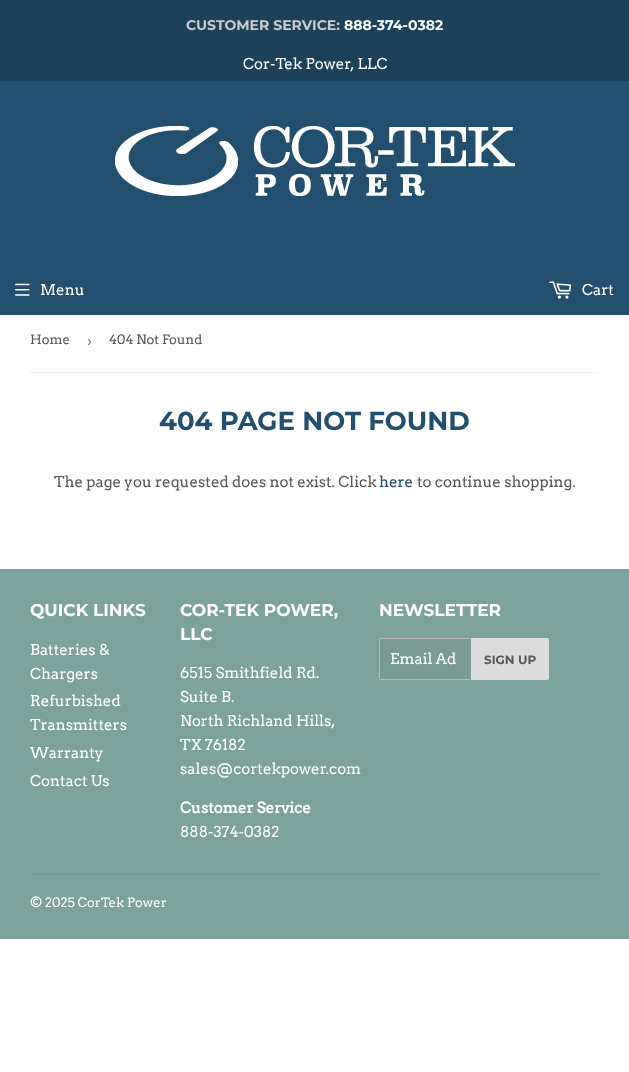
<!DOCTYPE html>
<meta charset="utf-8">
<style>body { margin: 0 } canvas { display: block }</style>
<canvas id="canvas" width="629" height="1072"></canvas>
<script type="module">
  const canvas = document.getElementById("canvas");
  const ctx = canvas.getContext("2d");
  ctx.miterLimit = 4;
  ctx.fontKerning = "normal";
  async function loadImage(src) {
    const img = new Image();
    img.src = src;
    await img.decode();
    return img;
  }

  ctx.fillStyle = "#ffffff";
  ctx.fillRect(0, 0, 629, 1072);
  ctx.fillStyle = "#1c415a";
  ctx.fillRect(0, 0, 629, 81);
  ctx.font = "100 14px Montserrat";
  ctx.fillStyle = "#cccccc";
  ctx.fillText("CUSTOMER SERVICE:", 186, 30);
  ctx.fillStyle = "#ffffff";
  ctx.fillText("888-374-0382", 344, 30);
  ctx.font = "15px Arvo";
  ctx.fillText("Cor-Tek Power, LLC", 243, 69);
  ctx.fillStyle = "#224f6d";
  ctx.fillRect(0, 81, 629, 234);
  ctx.drawImage(await loadImage("img1.png"), 115, 126, 400, 70);
  ctx.drawImage(await loadImage("img2.png"), 15, 283, 15, 13);
  ctx.fillStyle = "#ffffff";
  ctx.fillText("Menu", 40, 295);
  ctx.drawImage(await loadImage("img3.png"), 549, 281, 23, 18);
  ctx.fillText("Cart", 582, 295);
  ctx.fillStyle = "#ececec";
  ctx.fillRect(30, 372, 569, 1);
  ctx.font = "13px Arvo";
  ctx.fillStyle = "#585858";
  ctx.fillText("Home", 30, 344);
  ctx.font = "15px Liberation Sans";
  ctx.fillStyle = "#767676";
  ctx.fillText("›", 87, 346);
  ctx.font = "13px Arvo";
  ctx.fillStyle = "#585858";
  ctx.fillText("404 Not Found", 109, 344);
  ctx.font = "100 26px Montserrat";
  ctx.fillStyle = "#224f6d";
  ctx.fillText("404 PAGE NOT FOUND", 159, 430);
  ctx.font = "15px Arvo";
  ctx.fillStyle = "#585858";
  ctx.fillText("The page you requested does not exist. Click", 54, 487);
  ctx.fillStyle = "#224f6d";
  ctx.fillText("here", 379, 487);
  ctx.fillStyle = "#585858";
  ctx.fillText("to continue shopping.", 417, 487);
  ctx.fillStyle = "#7ba39b";
  ctx.fillRect(0, 569, 629, 370);
  ctx.font = "100 17px Montserrat";
  ctx.fillStyle = "#ffffff";
  ctx.fillText("QUICK LINKS", 30, 616);
  ctx.font = "15px Arvo";
  ctx.fillText("Batteries &", 30, 655);
  ctx.fillText("Chargers", 30, 679);
  ctx.fillText("Refurbished", 30, 706);
  ctx.fillText("Transmitters", 30, 730);
  ctx.fillText("Warranty", 30, 758);
  ctx.fillText("Contact Us", 30, 786);
  ctx.font = "100 17px Montserrat";
  ctx.fillText("COR-TEK POWER,", 180, 616);
  ctx.fillText("LLC", 180, 640);
  ctx.font = "15px Arvo";
  ctx.fillText("6515 Smithfield Rd.", 180, 678);
  ctx.fillText("Suite B.", 180, 702);
  ctx.fillText("North Richland Hills,", 180, 726);
  ctx.fillText("TX 76182", 180, 750);
  ctx.fillText("sales@cortekpower.com", 180, 774);
  ctx.font = "bold 15px Arvo";
  ctx.fillText("Customer Service", 180, 813);
  ctx.font = "15px Arvo";
  ctx.fillText("888-374-0382", 180, 837);
  ctx.font = "100 17px Montserrat";
  ctx.fillText("NEWSLETTER", 379, 616);
  ctx.fillStyle = "#789c94";
  ctx.beginPath();
  ctx.roundRect(379, 638, 92, 42, 2);
  ctx.fill();
  ctx.fillStyle = "#b9b9b9";
  ctx.fillRect(380, 638, 90, 1);
  ctx.fillRect(380, 679, 90, 1);
  ctx.fillRect(379, 639, 1, 40);
  ctx.font = "15px Arvo";
  ctx.fillStyle = "#ffffff";
  ctx.fillText("Email Ad", 390, 664);
  ctx.fillStyle = "#dcdcdc";
  ctx.beginPath();
  ctx.roundRect(471, 638, 78, 42, [0, 2, 2, 0]);
  ctx.fill();
  ctx.font = "100 12px Montserrat";
  ctx.fillStyle = "#585858";
  ctx.fillText("SIGN UP", 484, 664);
  ctx.fillStyle = "#6c9990";
  ctx.fillRect(30, 874, 569, 1);
  ctx.font = "13px Arvo";
  ctx.fillStyle = "#ffffff";
  ctx.fillText("© 2025 CorTek Power", 30, 907);
</script>
